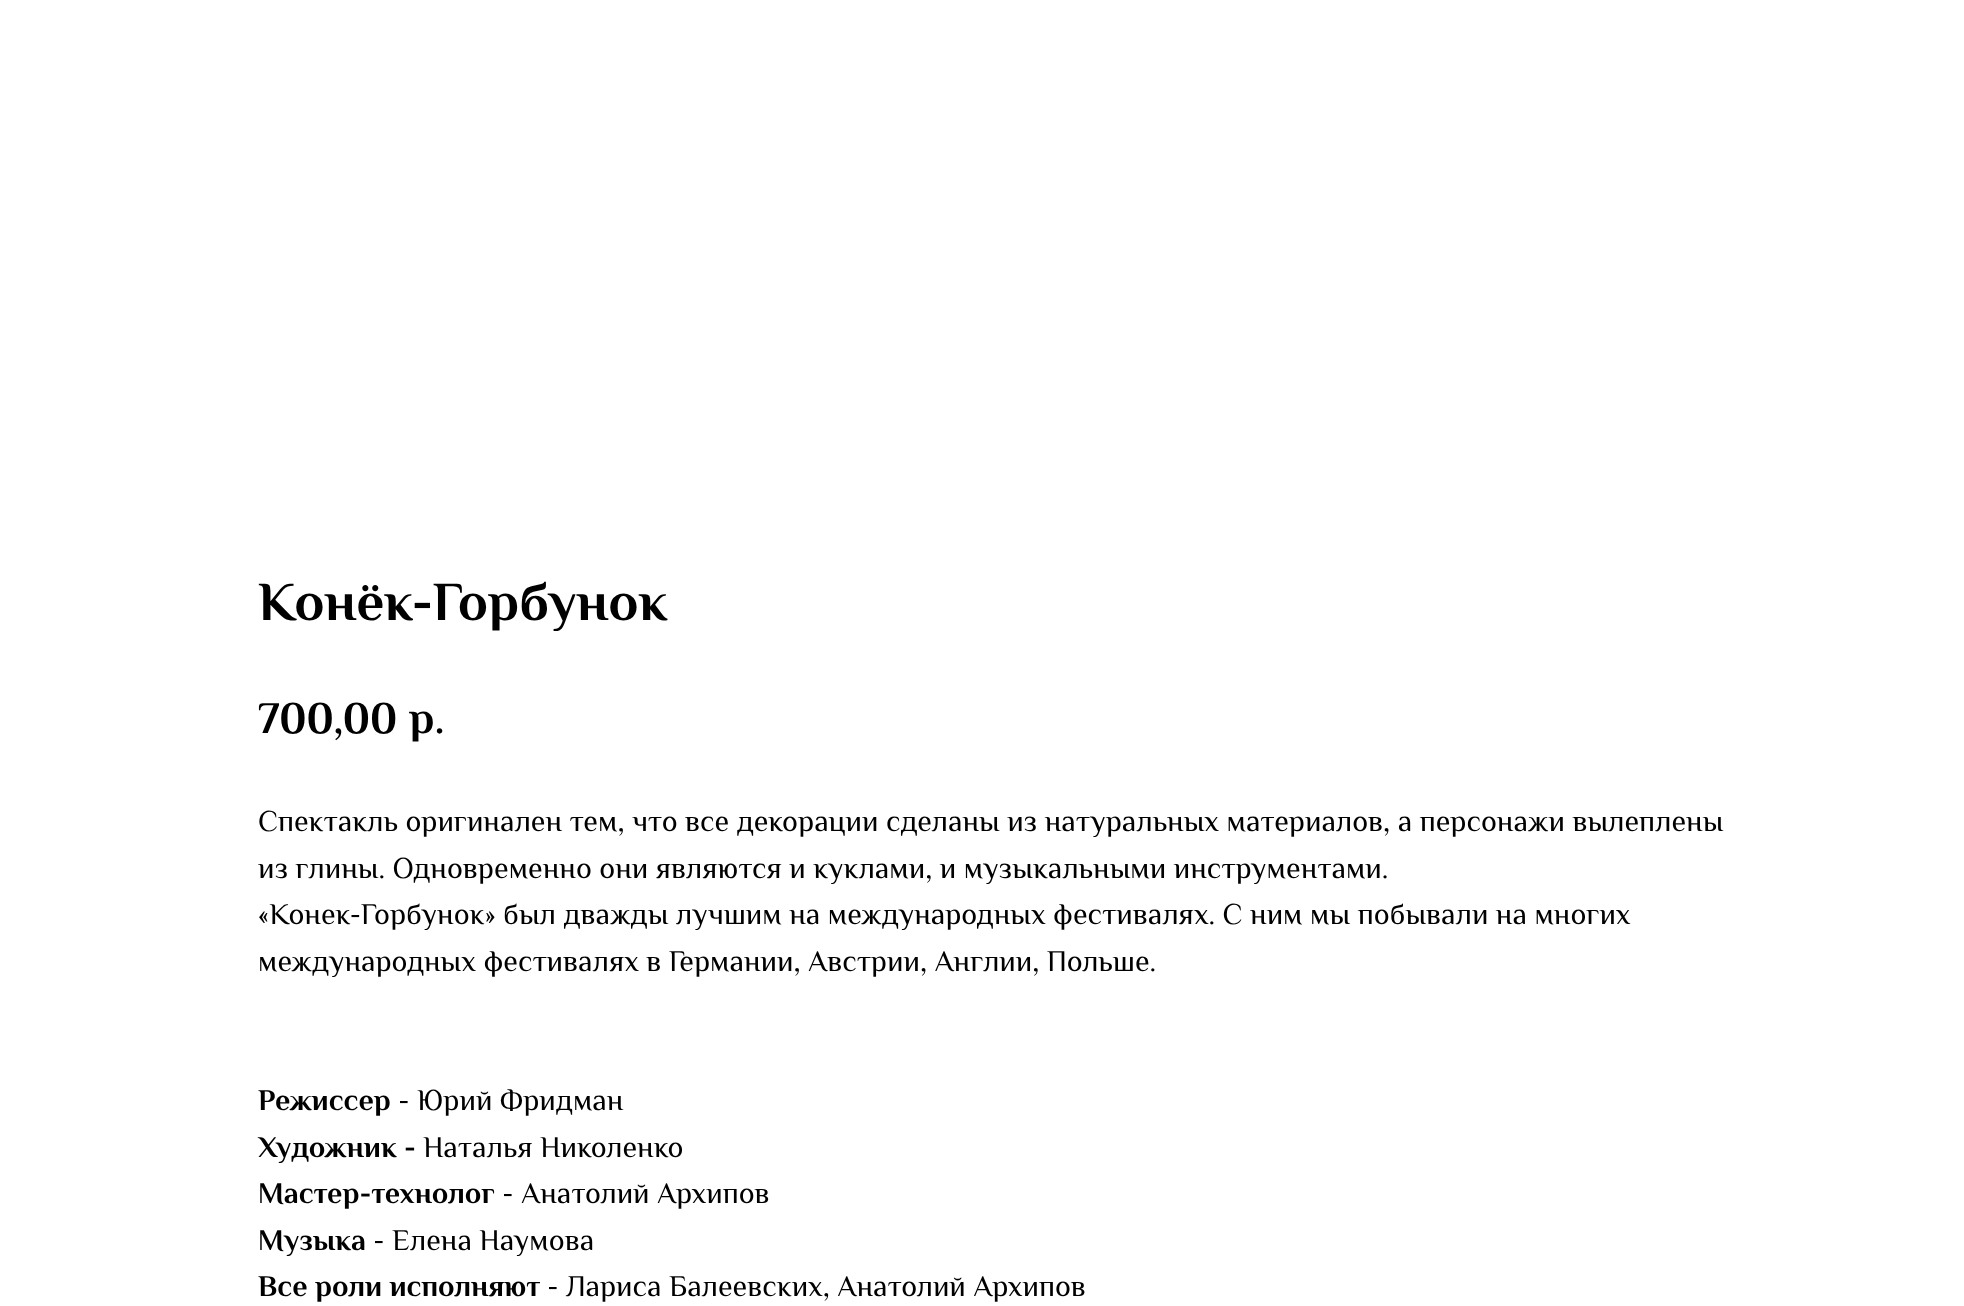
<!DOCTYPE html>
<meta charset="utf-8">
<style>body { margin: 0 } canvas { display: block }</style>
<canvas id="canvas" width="1964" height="1306"></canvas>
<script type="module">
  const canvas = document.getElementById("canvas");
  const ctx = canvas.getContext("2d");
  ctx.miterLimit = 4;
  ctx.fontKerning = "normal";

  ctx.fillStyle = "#ffffff";
  ctx.fillRect(0, 0, 1964, 1306);
  ctx.font = "bold 55px Philosopher";
  ctx.fillStyle = "#000000";
  ctx.fillText("Конёк-Горбунок", 258, 620);
  ctx.font = "bold 45px Philosopher";
  ctx.fillText("700,00", 258, 733);
  ctx.fillText("р.", 409, 733);
  ctx.font = "30px Philosopher";
  ctx.fillText("Спектакль оригинален тем, что все декорации сделаны из натуральных материалов, а персонажи вылеплены", 258, 831);
  ctx.fillText("из глины. Одновременно они являются и куклами, и музыкальными инструментами.", 258, 878);
  ctx.fillText("«Конек-Горбунок» был дважды лучшим на международных фестивалях. С ним мы побывали на многих", 258, 924);
  ctx.fillText("международных фестивалях в Германии, Австрии, Англии, Польше.", 258, 971);
  ctx.font = "bold 30px Philosopher";
  ctx.fillText("Режиссер", 258, 1110);
  ctx.font = "30px Philosopher";
  ctx.fillText("- Юрий Фридман", 398, 1110);
  ctx.font = "bold 30px Philosopher";
  ctx.fillText("Художник -", 258, 1157);
  ctx.font = "30px Philosopher";
  ctx.fillText("Наталья Николенко", 423, 1157);
  ctx.font = "bold 30px Philosopher";
  ctx.fillText("Мастер-технолог", 258, 1203);
  ctx.font = "30px Philosopher";
  ctx.fillText("- Анатолий Архипов", 502, 1203);
  ctx.font = "bold 30px Philosopher";
  ctx.fillText("Музыка", 258, 1250);
  ctx.font = "30px Philosopher";
  ctx.fillText("- Елена Наумова", 373, 1250);
  ctx.font = "bold 30px Philosopher";
  ctx.fillText("Все роли исполняют", 258, 1296);
  ctx.font = "30px Philosopher";
  ctx.fillText("- Лариса Балеевских, Анатолий Архипов", 547, 1296);
</script>
